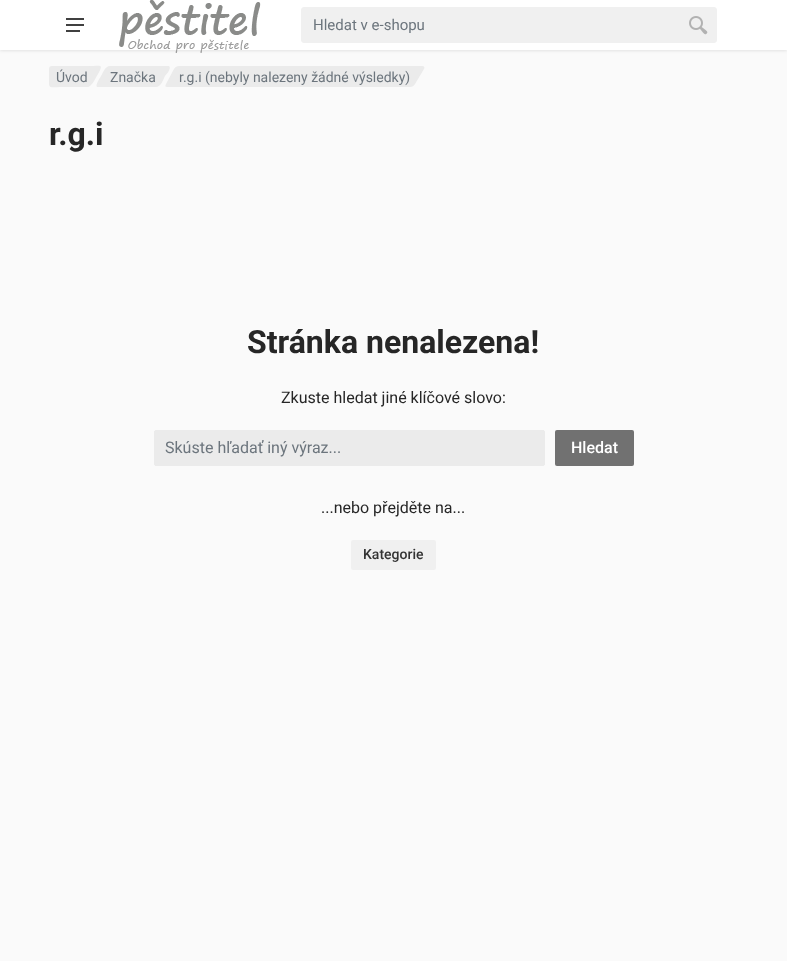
<!DOCTYPE html>
<meta charset="utf-8">
<style>body { margin: 0 } canvas { display: block }</style>
<canvas id="canvas" width="787" height="961"></canvas>
<script type="module">
  const canvas = document.getElementById("canvas");
  const ctx = canvas.getContext("2d");
  ctx.miterLimit = 4;
  ctx.fontKerning = "normal";
  async function loadImage(src) {
    const img = new Image();
    img.src = src;
    await img.decode();
    return img;
  }

  ctx.fillStyle = "#fafafa";
  ctx.fillRect(0, 0, 787, 961);
  ctx.fillStyle = "rgba(0, 0, 0, 0.09)";
  ctx.filter = "blur(1.5px)";
  ctx.beginPath();
  ctx.rect(0, 1, 787, 50);
  ctx.fill();
  ctx.filter = "none";
  ctx.fillStyle = "#ffffff";
  ctx.fillRect(0, 0, 787, 50);
  ctx.drawImage(await loadImage("img1.png"), 66, 18, 18, 14);
  ctx.drawImage(await loadImage("img2.png"), 119, 0, 142, 53);
  ctx.fillStyle = "#f0f0f0";
  ctx.beginPath();
  ctx.roundRect(301.5, 7.5, 415, 35, 2.5);
  ctx.fill();
  ctx.strokeStyle = "#f0f0f0";
  ctx.stroke();
  ctx.font = "15px Roboto";
  ctx.fillStyle = "#6c757d";
  ctx.fillText("Hledat v e-shopu", 313, 30);
  ctx.drawImage(await loadImage("img3.png"), 689, 16, 19, 19);
  ctx.fillStyle = "#ebebeb";
  ctx.beginPath();
  ctx.moveTo(64, 66);
  ctx.lineTo(87, 66);
  ctx.bezierCurveTo(101, 66, 104, 63, 98, 74);
  ctx.bezierCurveTo(96, 77, 92, 87, 87, 87);
  ctx.lineTo(63, 87);
  ctx.bezierCurveTo(50, 87, 47, 90, 53, 79);
  ctx.bezierCurveTo(55, 76, 59, 66, 64, 66);
  ctx.closePath();
  ctx.fill();
  ctx.beginPath();
  ctx.roundRect(49, 66, 41, 21, 3);
  ctx.fill();
  ctx.font = "14px Roboto";
  ctx.fillStyle = "#6c757d";
  ctx.fillText("Úvod", 56, 82);
  ctx.fillStyle = "#ebebeb";
  ctx.beginPath();
  ctx.moveTo(110, 66);
  ctx.lineTo(169, 66);
  ctx.bezierCurveTo(172, 68, 166, 75, 165, 76);
  ctx.bezierCurveTo(163, 80, 161, 87, 156, 87);
  ctx.lineTo(97, 87);
  ctx.bezierCurveTo(95, 85, 100, 78, 101, 76);
  ctx.bezierCurveTo(103, 73, 105, 66, 110, 66);
  ctx.closePath();
  ctx.fill();
  ctx.fillStyle = "#6c757d";
  ctx.fillText("Značka", 110, 82);
  ctx.fillStyle = "#ebebeb";
  ctx.beginPath();
  ctx.moveTo(179, 66);
  ctx.lineTo(422, 66);
  ctx.bezierCurveTo(424, 66, 425, 67, 424, 69);
  ctx.lineTo(415, 84);
  ctx.bezierCurveTo(414, 86, 412, 87, 410, 87);
  ctx.lineTo(167, 87);
  ctx.bezierCurveTo(165, 87, 165, 86, 166, 84);
  ctx.lineTo(174, 69);
  ctx.bezierCurveTo(175, 67, 177, 66, 179, 66);
  ctx.closePath();
  ctx.fill();
  ctx.fillStyle = "#6c757d";
  ctx.fillText("r.g.i (nebyly nalezeny žádné výsledky)", 179, 82);
  ctx.font = "bold 32px Roboto";
  ctx.fillStyle = "#262626";
  ctx.fillText("r.g.i", 49, 145);
  ctx.fillText("Stránka nenalezena!", 247, 353);
  ctx.font = "16px Roboto";
  ctx.fillText("Zkuste hledat jiné klíčové slovo:", 281, 403);
  ctx.fillStyle = "#ebebeb";
  ctx.beginPath();
  ctx.roundRect(154.5, 430.5, 390, 35, 1.5);
  ctx.fill();
  ctx.strokeStyle = "#ebebeb";
  ctx.stroke();
  ctx.fillStyle = "#6c757d";
  ctx.fillText("Skúste hľadať iný výraz...", 165, 453);
  ctx.fillStyle = "#717171";
  ctx.beginPath();
  ctx.roundRect(555, 430, 79, 36, 2);
  ctx.fill();
  ctx.font = "500 16px Roboto";
  ctx.fillStyle = "#ffffff";
  ctx.fillText("Hledat", 571, 453);
  ctx.font = "16px Roboto";
  ctx.fillStyle = "#262626";
  ctx.fillText("...nebo přejděte na...", 321, 513);
  ctx.fillStyle = "#f0f0f0";
  ctx.beginPath();
  ctx.roundRect(351, 540, 85, 30, 2);
  ctx.fill();
  ctx.font = "500 14px Roboto";
  ctx.fillStyle = "#333333";
  ctx.fillText("Kategorie", 363, 559);
</script>
